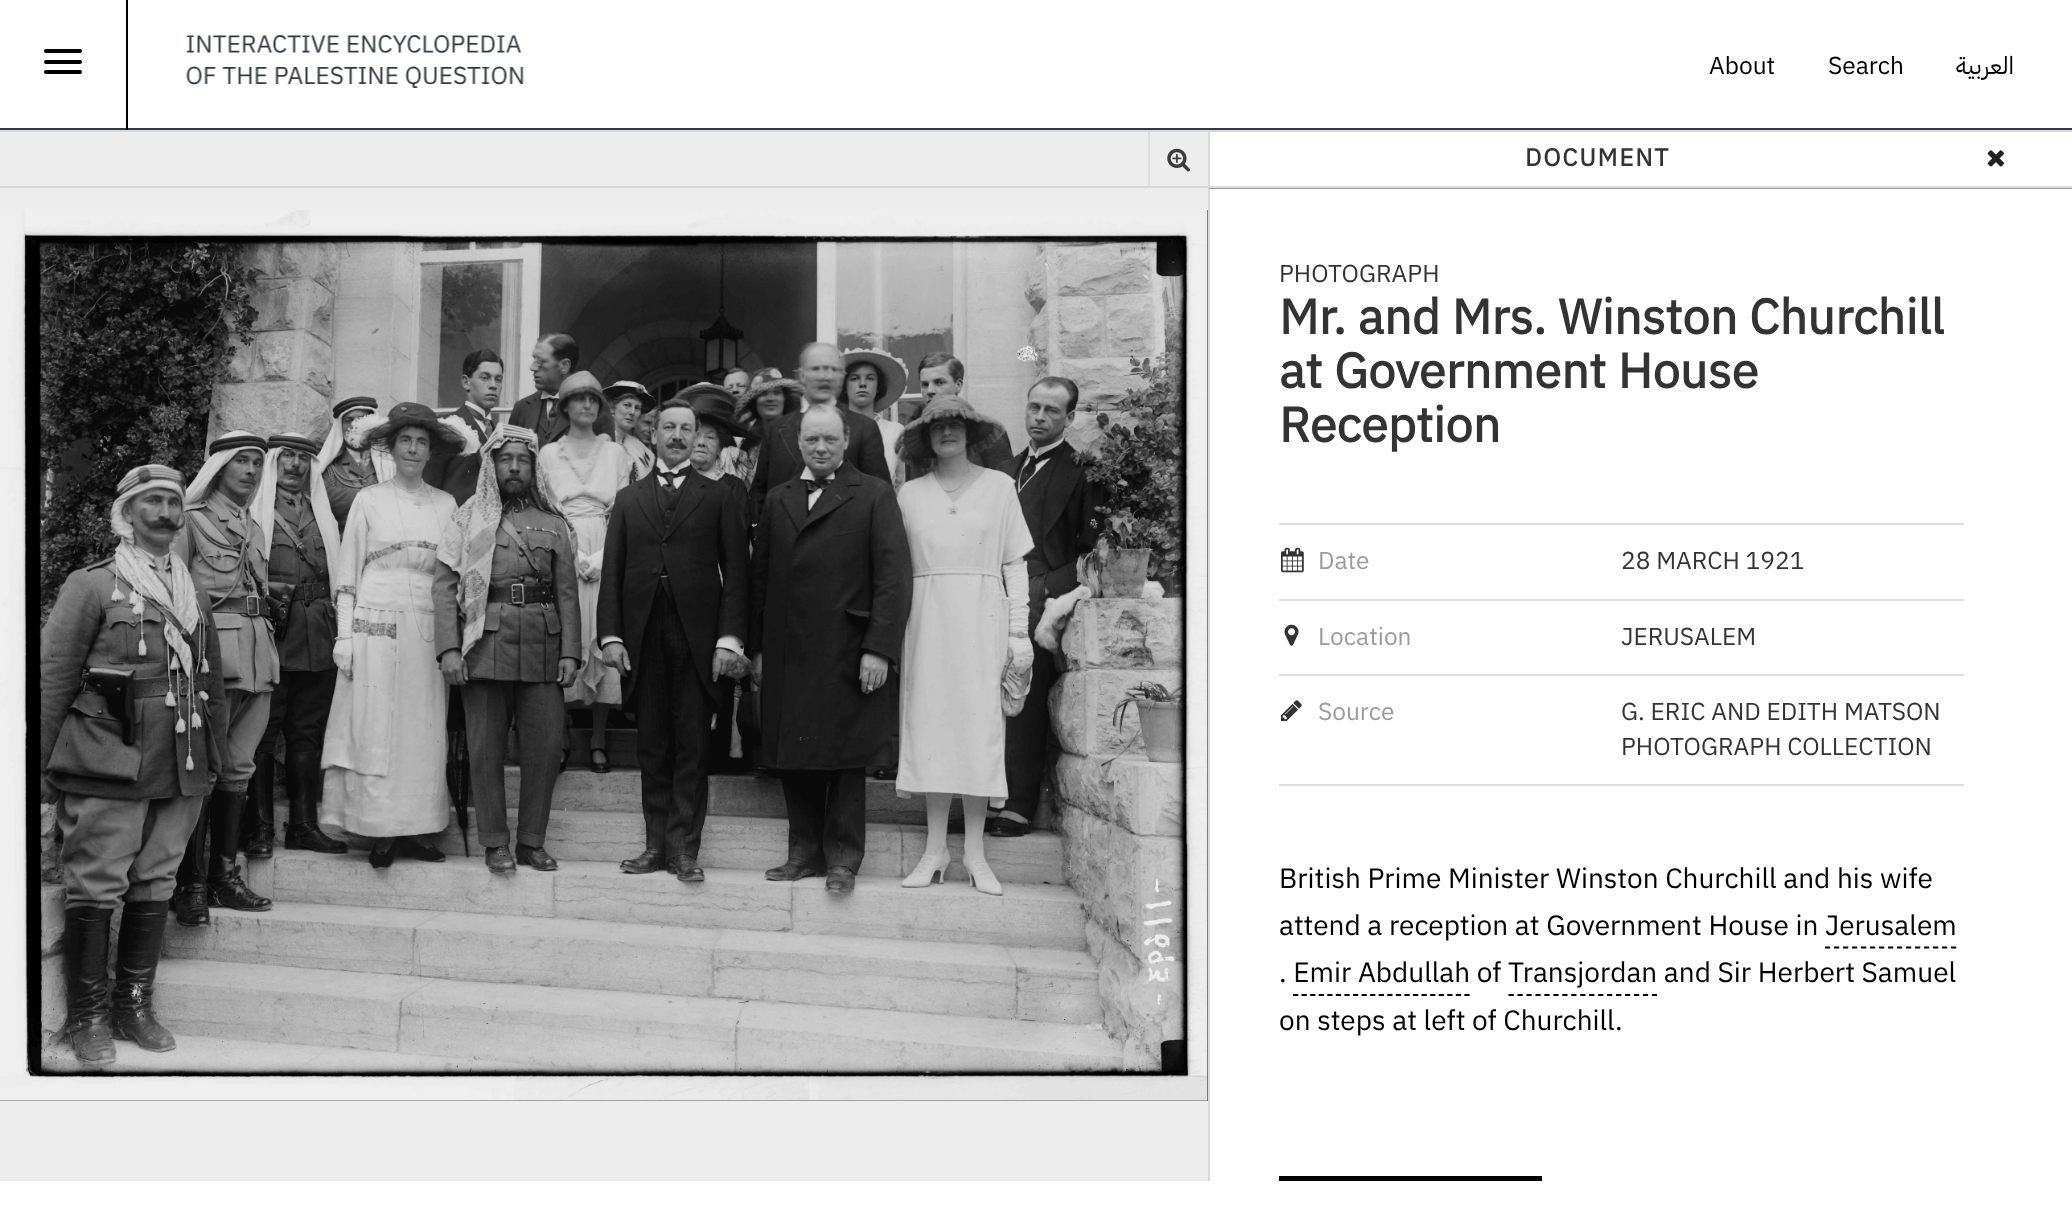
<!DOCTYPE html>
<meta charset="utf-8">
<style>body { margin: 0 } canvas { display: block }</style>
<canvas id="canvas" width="2072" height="1210"></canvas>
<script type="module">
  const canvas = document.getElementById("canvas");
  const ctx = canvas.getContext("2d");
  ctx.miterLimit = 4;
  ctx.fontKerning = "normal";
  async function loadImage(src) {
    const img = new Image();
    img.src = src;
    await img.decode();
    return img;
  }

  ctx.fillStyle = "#ffffff";
  ctx.fillRect(0, 0, 2072, 1210);
  ctx.fillStyle = "#ededed";
  ctx.fillRect(0, 132, 1208, 1049);
  ctx.fillStyle = "#dddddd";
  ctx.fillRect(1148, 131, 2, 56);
  ctx.fillStyle = "#d8d8d8";
  ctx.fillRect(1208, 131, 2, 1050);
  ctx.fillStyle = "#d7d7d7";
  ctx.fillRect(0, 130, 2072, 2);
  ctx.fillStyle = "#343a40";
  ctx.fillRect(0, 128, 2072, 2);
  ctx.fillStyle = "#000000";
  ctx.fillRect(126, 0, 2, 130);
  ctx.beginPath();
  ctx.roundRect(44, 49, 38, 4, 2);
  ctx.fill();
  ctx.beginPath();
  ctx.roundRect(44, 60, 38, 4, 2);
  ctx.fill();
  ctx.beginPath();
  ctx.roundRect(44, 70, 38, 4, 2);
  ctx.fill();
  ctx.drawImage(await loadImage("img1.png"), 186, 35, 338, 53);
  ctx.font = "24.5px IBM Plex Sans Arabic";
  ctx.fillText("About", 1709, 74);
  ctx.fillText("Search", 1828, 74);
  ctx.direction = "rtl";
  ctx.fillText("العربية", 2014, 74);
  ctx.fillStyle = "#d7d7d7";
  ctx.fillRect(0, 186, 1208, 2);
  ctx.drawImage(await loadImage("img2.png"), 1167, 148, 23, 24);
  ctx.fillStyle = "#222222";
  ctx.fillRect(0, 210, 1208, 891);
  ctx.drawImage(await loadImage("img3.png"), 0, 210, 1208, 891);
  ctx.fillStyle = "#9b9b9b";
  ctx.fillRect(1209, 188, 863, 1);
  ctx.fillStyle = "#dddddd";
  ctx.fillRect(1209, 186, 863, 2);
  ctx.letterSpacing = "1.75px";
  ctx.direction = "ltr";
  ctx.font = "bold 24.5px IBM Plex Sans Arabic";
  ctx.fillStyle = "#333333";
  ctx.fillText("DOCUMENT", 1525, 166);
  ctx.drawImage(await loadImage("img4.png"), 1987, 150, 17, 17);
  ctx.letterSpacing = "0px";
  ctx.font = "24.5px IBM Plex Sans Arabic";
  ctx.fillText("PHOTOGRAPH", 1279, 282);
  ctx.font = "bold 49px IBM Plex Sans Arabic";
  ctx.fillText("Mr. and Mrs. Winston Churchill", 1279, 334);
  ctx.fillText("at Government House", 1279, 388);
  ctx.fillText("Reception", 1279, 442);
  ctx.fillStyle = "#dedede";
  ctx.fillRect(1279, 523, 685, 2);
  ctx.fillRect(1279, 599, 685, 2);
  ctx.drawImage(await loadImage("img5.png"), 1281, 547, 23, 26);
  ctx.font = "24.5px IBM Plex Sans Arabic";
  ctx.fillStyle = "#9b9b9b";
  ctx.fillText("Date", 1318, 569);
  ctx.fillStyle = "#333333";
  ctx.fillText("28 MARCH 1921", 1621, 569);
  ctx.fillStyle = "#dedede";
  ctx.fillRect(1279, 674, 685, 2);
  ctx.drawImage(await loadImage("img6.png"), 1284, 624, 15, 22);
  ctx.fillStyle = "#9b9b9b";
  ctx.fillText("Location", 1318, 645);
  ctx.fillStyle = "#333333";
  ctx.fillText("JERUSALEM", 1621, 645);
  ctx.fillStyle = "#dedede";
  ctx.fillRect(1279, 784, 685, 2);
  ctx.drawImage(await loadImage("img7.png"), 1281, 700, 21, 21);
  ctx.fillStyle = "#9b9b9b";
  ctx.fillText("Source", 1318, 720);
  ctx.fillStyle = "#333333";
  ctx.fillText("G. ERIC AND EDITH MATSON", 1621, 720);
  ctx.fillText("PHOTOGRAPH COLLECTION", 1621, 755);
  ctx.font = "28px IBM Plex Sans Arabic";
  ctx.fillStyle = "#000000";
  ctx.fillText("British Prime Minister Winston Churchill and his wife", 1279, 888);
  ctx.fillText("attend a reception at Government House in Jerusalem", 1279, 935);
  ctx.beginPath();
  ctx.moveTo(1825, 947.5);
  ctx.lineTo(1956.5, 947.5);
  ctx.strokeStyle = "#000000";
  ctx.lineWidth = 1.8;
  ctx.setLineDash([5.25, 3.75]);
  ctx.stroke();
  ctx.fillText(". Emir Abdullah of Transjordan and Sir Herbert Samuel", 1279, 982);
  ctx.beginPath();
  ctx.moveTo(1293, 995);
  ctx.lineTo(1470, 995);
  ctx.setLineDash([5.25, 3.32]);
  ctx.stroke();
  ctx.beginPath();
  ctx.moveTo(1508.5, 995);
  ctx.lineTo(1657, 995);
  ctx.setLineDash([5.25, 3.71]);
  ctx.stroke();
  ctx.fillText("on steps at left of Churchill.", 1279, 1030);
  ctx.fillRect(1279, 1176, 263, 5);
</script>
